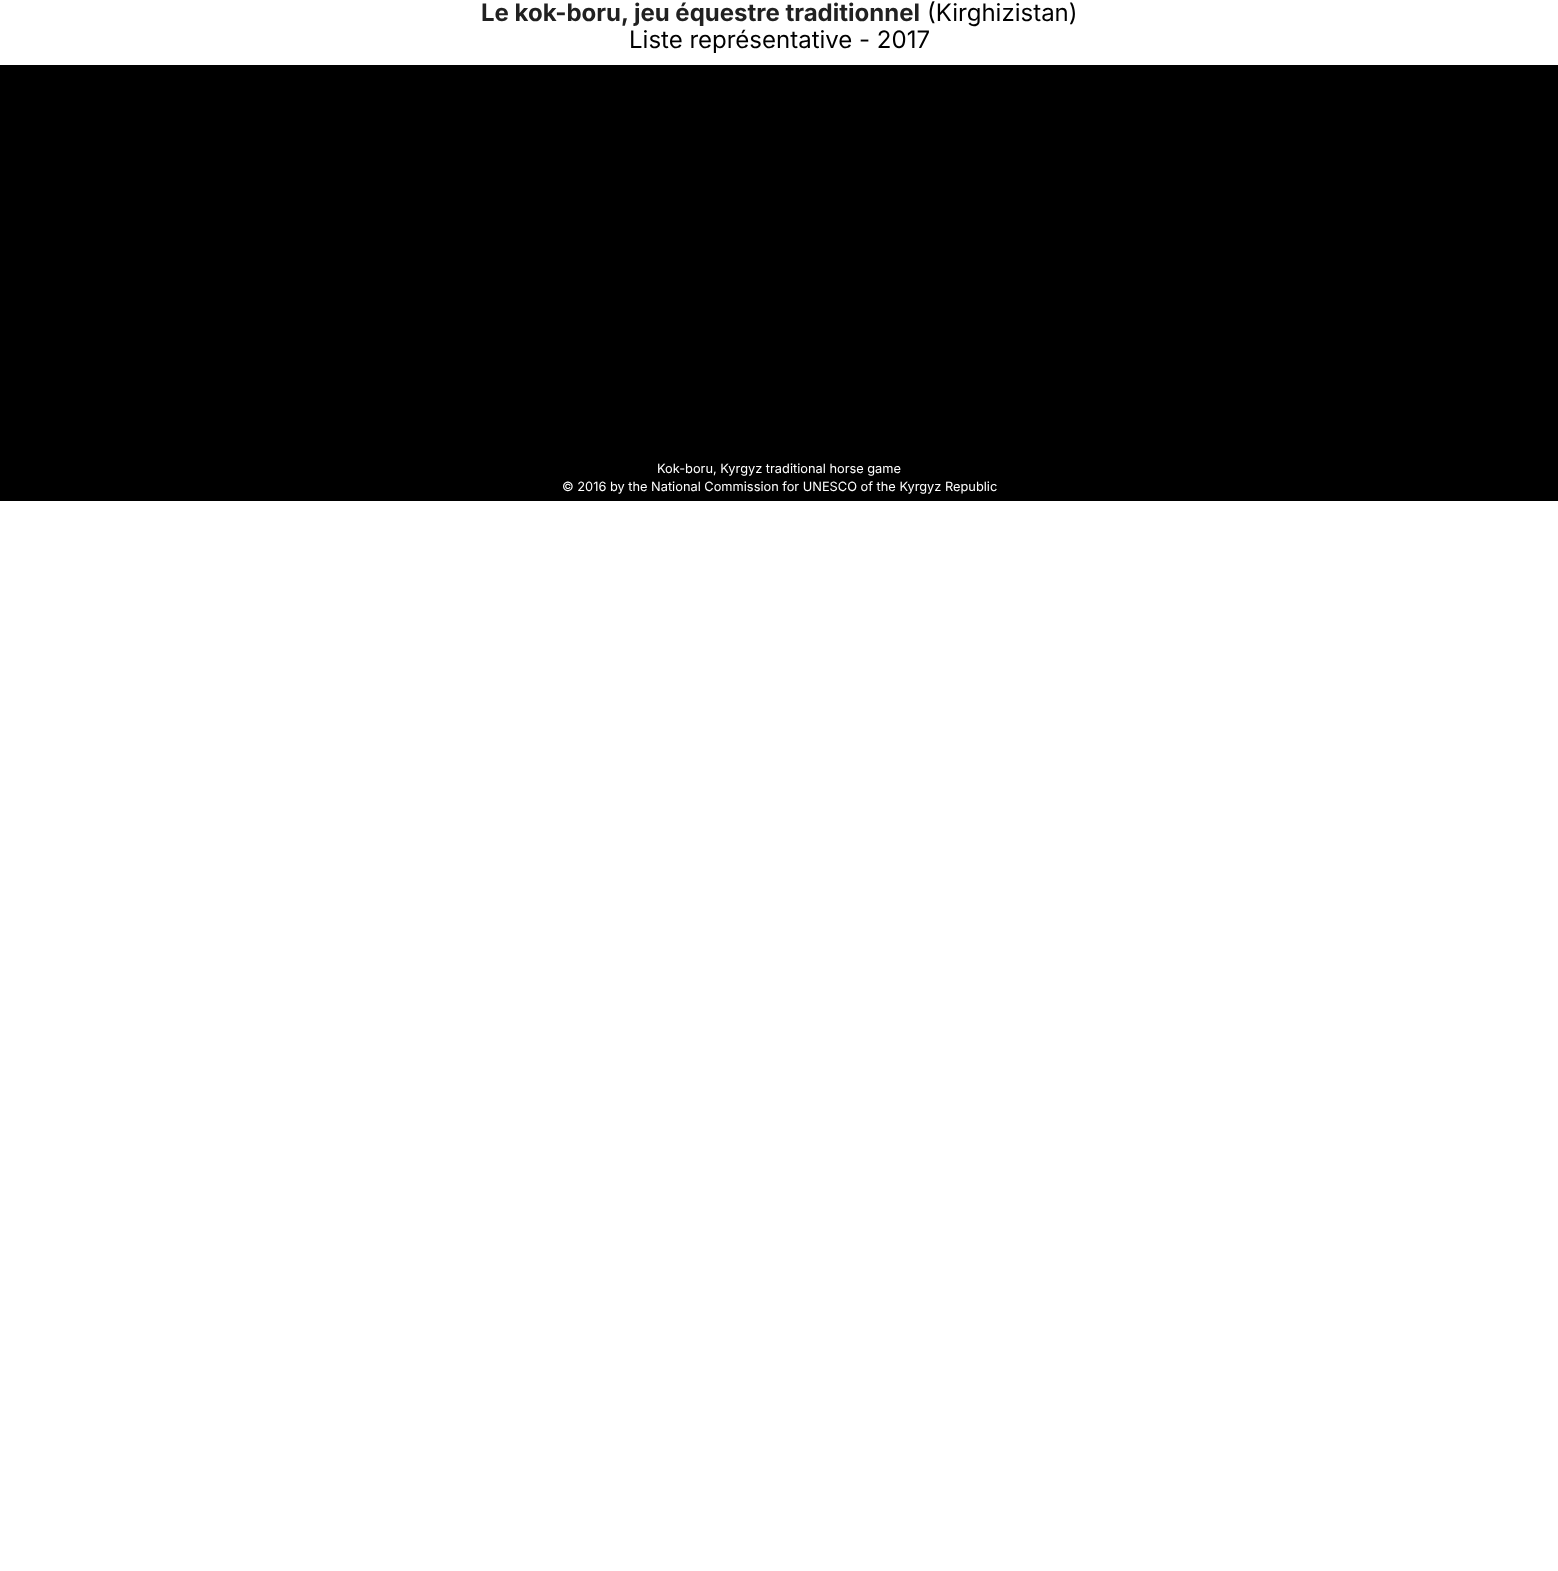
<!DOCTYPE html>
<meta charset="utf-8">
<style>body { margin: 0 } canvas { display: block }</style>
<canvas id="canvas" width="1558" height="1571"></canvas>
<script type="module">
  const canvas = document.getElementById("canvas");
  const ctx = canvas.getContext("2d");
  ctx.miterLimit = 4;
  ctx.fontKerning = "normal";

  ctx.fillStyle = "#ffffff";
  ctx.fillRect(0, 0, 1558, 1571);
  ctx.font = "bold 24px Inter";
  ctx.fillStyle = "#212121";
  ctx.fillText("Le kok-boru, jeu équestre traditionnel", 481, 21);
  ctx.font = "24px Inter";
  ctx.fillStyle = "#000000";
  ctx.fillText("(Kirghizistan)", 927, 21);
  ctx.fillText("Liste représentative - 2017", 629, 48);
  ctx.fillRect(0, 65, 1558, 436);
  ctx.font = "12.8px Inter";
  ctx.fillStyle = "#ffffff";
  ctx.fillText("Kok-boru, Kyrgyz traditional horse game", 657, 473);
  ctx.fillText("© 2016 by the National Commission for UNESCO of the Kyrgyz Republic", 562, 491);
</script>
